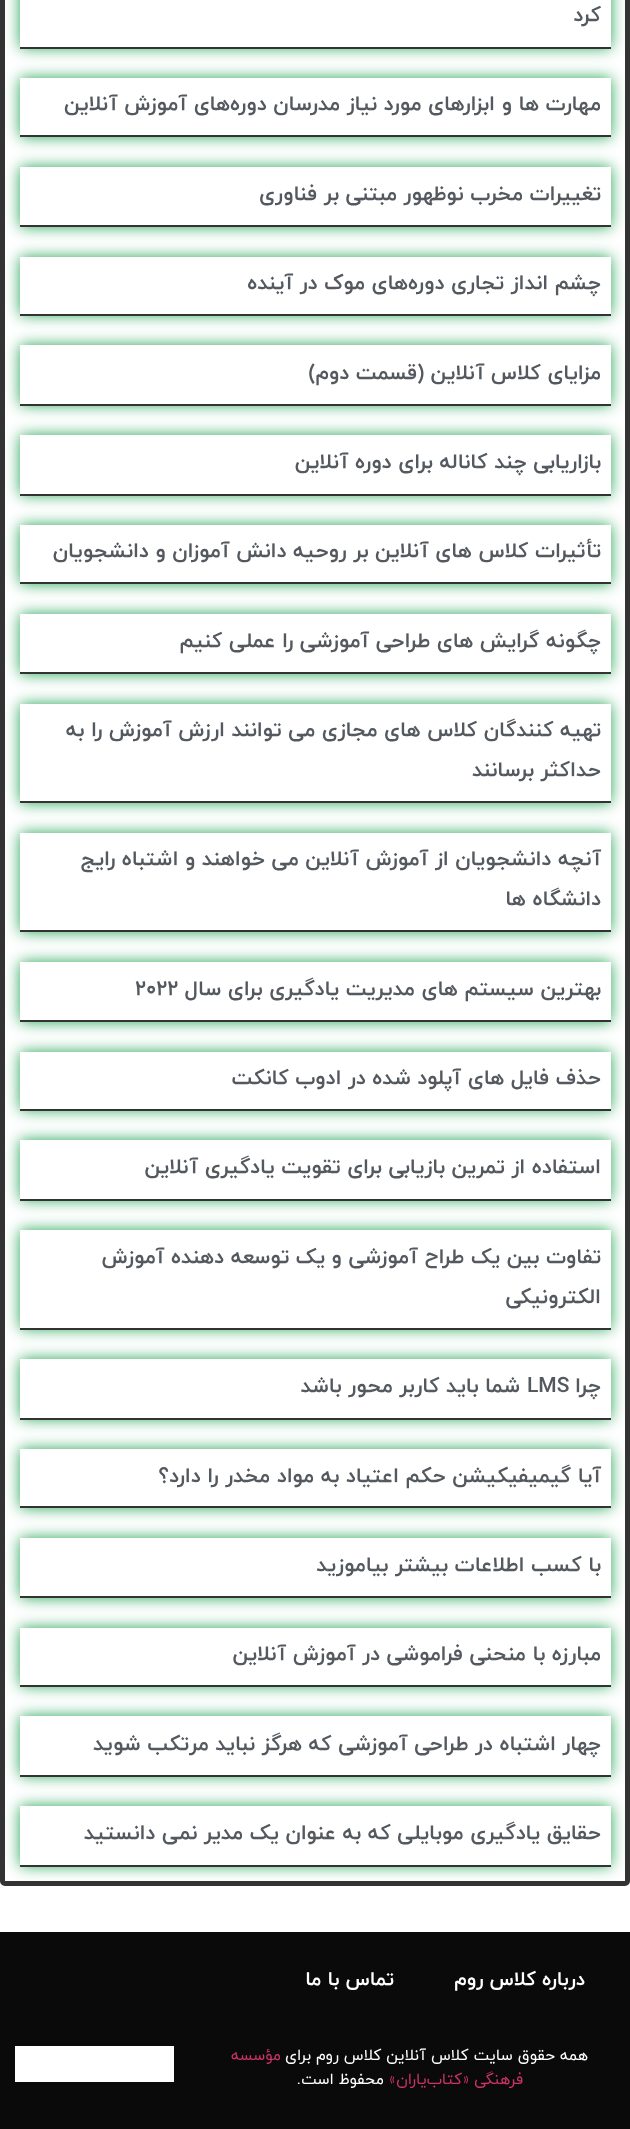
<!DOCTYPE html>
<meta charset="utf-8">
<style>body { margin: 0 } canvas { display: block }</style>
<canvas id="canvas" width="630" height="2129"></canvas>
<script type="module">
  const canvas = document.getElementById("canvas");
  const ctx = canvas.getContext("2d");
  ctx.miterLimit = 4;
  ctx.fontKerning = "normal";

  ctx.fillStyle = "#ffffff";
  ctx.fillRect(0, 0, 630, 2129);
  ctx.beginPath();
  ctx.roundRect(2.5, -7.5, 625, 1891, 2.5);
  ctx.strokeStyle = "#333333";
  ctx.lineWidth = 5;
  ctx.stroke();
  ctx.save();
  ctx.beginPath();
  ctx.moveTo(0, 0);
  ctx.lineTo(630, 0);
  ctx.lineTo(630, 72);
  ctx.lineTo(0, 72);
  ctx.closePath();
  ctx.moveTo(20, -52);
  ctx.lineTo(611, -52);
  ctx.lineTo(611, 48);
  ctx.lineTo(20, 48);
  ctx.closePath();
  ctx.clip("evenodd");
  ctx.fillStyle = "#23a455";
  ctx.filter = "blur(7.5px)";
  ctx.beginPath();
  ctx.rect(20, -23, 591, 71);
  ctx.fill();
  ctx.filter = "none";
  ctx.restore();
  ctx.fillStyle = "#333333";
  ctx.fillRect(20, 47, 591, 2);
  ctx.direction = "rtl";
  ctx.font = "bold 21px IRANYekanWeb";
  ctx.fillStyle = "#54595f";
  ctx.fillText("کرد", 601, 21);
  ctx.save();
  ctx.beginPath();
  ctx.moveTo(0, 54);
  ctx.lineTo(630, 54);
  ctx.lineTo(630, 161);
  ctx.lineTo(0, 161);
  ctx.closePath();
  ctx.moveTo(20, 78);
  ctx.lineTo(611, 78);
  ctx.lineTo(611, 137);
  ctx.lineTo(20, 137);
  ctx.closePath();
  ctx.clip("evenodd");
  ctx.fillStyle = "#23a455";
  ctx.filter = "blur(7.5px)";
  ctx.beginPath();
  ctx.rect(20, 78, 591, 59);
  ctx.fill();
  ctx.filter = "none";
  ctx.restore();
  ctx.fillStyle = "#333333";
  ctx.fillRect(20, 135, 591, 2);
  ctx.fillStyle = "#54595f";
  ctx.fillText("مهارت ها و ابزارهای مورد نیاز مدرسان دوره‌های آموزش آنلاین", 601, 110);
  ctx.save();
  ctx.beginPath();
  ctx.moveTo(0, 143);
  ctx.lineTo(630, 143);
  ctx.lineTo(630, 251);
  ctx.lineTo(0, 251);
  ctx.closePath();
  ctx.moveTo(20, 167);
  ctx.lineTo(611, 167);
  ctx.lineTo(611, 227);
  ctx.lineTo(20, 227);
  ctx.closePath();
  ctx.clip("evenodd");
  ctx.fillStyle = "#23a455";
  ctx.filter = "blur(7.5px)";
  ctx.beginPath();
  ctx.rect(20, 167, 591, 60);
  ctx.fill();
  ctx.filter = "none";
  ctx.restore();
  ctx.fillStyle = "#333333";
  ctx.fillRect(20, 225, 591, 2);
  ctx.fillStyle = "#54595f";
  ctx.fillText("تغییرات مخرب نوظهور مبتنی بر فناوری", 601, 200);
  ctx.save();
  ctx.beginPath();
  ctx.moveTo(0, 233);
  ctx.lineTo(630, 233);
  ctx.lineTo(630, 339);
  ctx.lineTo(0, 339);
  ctx.closePath();
  ctx.moveTo(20, 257);
  ctx.lineTo(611, 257);
  ctx.lineTo(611, 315);
  ctx.lineTo(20, 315);
  ctx.closePath();
  ctx.clip("evenodd");
  ctx.fillStyle = "#23a455";
  ctx.filter = "blur(7.5px)";
  ctx.beginPath();
  ctx.rect(20, 257, 591, 58);
  ctx.fill();
  ctx.filter = "none";
  ctx.restore();
  ctx.fillStyle = "#333333";
  ctx.fillRect(20, 314, 591, 2);
  ctx.fillStyle = "#54595f";
  ctx.fillText("چشم انداز تجاری دوره‌های موک در آینده", 601, 289);
  ctx.save();
  ctx.beginPath();
  ctx.moveTo(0, 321);
  ctx.lineTo(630, 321);
  ctx.lineTo(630, 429);
  ctx.lineTo(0, 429);
  ctx.closePath();
  ctx.moveTo(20, 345);
  ctx.lineTo(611, 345);
  ctx.lineTo(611, 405);
  ctx.lineTo(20, 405);
  ctx.closePath();
  ctx.clip("evenodd");
  ctx.fillStyle = "#23a455";
  ctx.filter = "blur(7.5px)";
  ctx.beginPath();
  ctx.rect(20, 345, 591, 60);
  ctx.fill();
  ctx.filter = "none";
  ctx.restore();
  ctx.fillStyle = "#333333";
  ctx.fillRect(20, 404, 591, 2);
  ctx.fillStyle = "#54595f";
  ctx.fillText("مزایای کلاس آنلاین (قسمت دوم)", 601, 379);
  ctx.save();
  ctx.beginPath();
  ctx.moveTo(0, 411);
  ctx.lineTo(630, 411);
  ctx.lineTo(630, 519);
  ctx.lineTo(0, 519);
  ctx.closePath();
  ctx.moveTo(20, 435);
  ctx.lineTo(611, 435);
  ctx.lineTo(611, 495);
  ctx.lineTo(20, 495);
  ctx.closePath();
  ctx.clip("evenodd");
  ctx.fillStyle = "#23a455";
  ctx.filter = "blur(7.5px)";
  ctx.beginPath();
  ctx.rect(20, 435, 591, 60);
  ctx.fill();
  ctx.filter = "none";
  ctx.restore();
  ctx.fillStyle = "#333333";
  ctx.fillRect(20, 494, 591, 2);
  ctx.fillStyle = "#54595f";
  ctx.fillText("بازاریابی چند کاناله برای دوره آنلاین", 601, 468);
  ctx.save();
  ctx.beginPath();
  ctx.moveTo(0, 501);
  ctx.lineTo(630, 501);
  ctx.lineTo(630, 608);
  ctx.lineTo(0, 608);
  ctx.closePath();
  ctx.moveTo(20, 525);
  ctx.lineTo(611, 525);
  ctx.lineTo(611, 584);
  ctx.lineTo(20, 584);
  ctx.closePath();
  ctx.clip("evenodd");
  ctx.fillStyle = "#23a455";
  ctx.filter = "blur(7.5px)";
  ctx.beginPath();
  ctx.rect(20, 525, 591, 59);
  ctx.fill();
  ctx.filter = "none";
  ctx.restore();
  ctx.fillStyle = "#333333";
  ctx.fillRect(20, 582, 591, 2);
  ctx.fillStyle = "#54595f";
  ctx.fillText("تأثیرات کلاس های آنلاین بر روحیه دانش آموزان و دانشجویان", 601, 557);
  ctx.save();
  ctx.beginPath();
  ctx.moveTo(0, 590);
  ctx.lineTo(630, 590);
  ctx.lineTo(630, 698);
  ctx.lineTo(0, 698);
  ctx.closePath();
  ctx.moveTo(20, 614);
  ctx.lineTo(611, 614);
  ctx.lineTo(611, 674);
  ctx.lineTo(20, 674);
  ctx.closePath();
  ctx.clip("evenodd");
  ctx.fillStyle = "#23a455";
  ctx.filter = "blur(7.5px)";
  ctx.beginPath();
  ctx.rect(20, 614, 591, 60);
  ctx.fill();
  ctx.filter = "none";
  ctx.restore();
  ctx.fillStyle = "#333333";
  ctx.fillRect(20, 672, 591, 2);
  ctx.fillStyle = "#54595f";
  ctx.fillText("چگونه گرایش های طراحی آموزشی را عملی کنیم", 601, 647);
  ctx.save();
  ctx.beginPath();
  ctx.moveTo(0, 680);
  ctx.lineTo(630, 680);
  ctx.lineTo(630, 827);
  ctx.lineTo(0, 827);
  ctx.closePath();
  ctx.moveTo(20, 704);
  ctx.lineTo(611, 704);
  ctx.lineTo(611, 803);
  ctx.lineTo(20, 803);
  ctx.closePath();
  ctx.clip("evenodd");
  ctx.fillStyle = "#23a455";
  ctx.filter = "blur(7.5px)";
  ctx.beginPath();
  ctx.rect(20, 704, 591, 99);
  ctx.fill();
  ctx.filter = "none";
  ctx.restore();
  ctx.fillStyle = "#333333";
  ctx.fillRect(20, 801, 591, 2);
  ctx.fillStyle = "#54595f";
  ctx.fillText("تهیه کنندگان کلاس های مجازی می توانند ارزش آموزش را به", 601, 736);
  ctx.fillText("حداکثر برسانند", 601, 776);
  ctx.save();
  ctx.beginPath();
  ctx.moveTo(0, 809);
  ctx.lineTo(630, 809);
  ctx.lineTo(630, 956);
  ctx.lineTo(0, 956);
  ctx.closePath();
  ctx.moveTo(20, 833);
  ctx.lineTo(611, 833);
  ctx.lineTo(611, 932);
  ctx.lineTo(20, 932);
  ctx.closePath();
  ctx.clip("evenodd");
  ctx.fillStyle = "#23a455";
  ctx.filter = "blur(7.5px)";
  ctx.beginPath();
  ctx.rect(20, 833, 591, 99);
  ctx.fill();
  ctx.filter = "none";
  ctx.restore();
  ctx.fillStyle = "#333333";
  ctx.fillRect(20, 930, 591, 2);
  ctx.fillStyle = "#54595f";
  ctx.fillText("آنچه دانشجویان از آموزش آنلاین می خواهند و اشتباه رایج", 601, 865);
  ctx.fillText("دانشگاه ها", 601, 905);
  ctx.save();
  ctx.beginPath();
  ctx.moveTo(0, 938);
  ctx.lineTo(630, 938);
  ctx.lineTo(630, 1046);
  ctx.lineTo(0, 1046);
  ctx.closePath();
  ctx.moveTo(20, 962);
  ctx.lineTo(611, 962);
  ctx.lineTo(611, 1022);
  ctx.lineTo(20, 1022);
  ctx.closePath();
  ctx.clip("evenodd");
  ctx.fillStyle = "#23a455";
  ctx.filter = "blur(7.5px)";
  ctx.beginPath();
  ctx.rect(20, 962, 591, 60);
  ctx.fill();
  ctx.filter = "none";
  ctx.restore();
  ctx.fillStyle = "#333333";
  ctx.fillRect(20, 1020, 591, 2);
  ctx.fillStyle = "#54595f";
  ctx.fillText("بهترین سیستم های مدیریت یادگیری برای سال", 601, 995);
  ctx.direction = "ltr";
  ctx.fillText("۲۰۲۲", 135, 995);
  ctx.save();
  ctx.beginPath();
  ctx.moveTo(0, 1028);
  ctx.lineTo(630, 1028);
  ctx.lineTo(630, 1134);
  ctx.lineTo(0, 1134);
  ctx.closePath();
  ctx.moveTo(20, 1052);
  ctx.lineTo(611, 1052);
  ctx.lineTo(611, 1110);
  ctx.lineTo(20, 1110);
  ctx.closePath();
  ctx.clip("evenodd");
  ctx.fillStyle = "#23a455";
  ctx.filter = "blur(7.5px)";
  ctx.beginPath();
  ctx.rect(20, 1052, 591, 58);
  ctx.fill();
  ctx.filter = "none";
  ctx.restore();
  ctx.fillStyle = "#333333";
  ctx.fillRect(20, 1109, 591, 2);
  ctx.direction = "rtl";
  ctx.fillStyle = "#54595f";
  ctx.fillText("حذف فایل های آپلود شده در ادوب کانکت", 601, 1084);
  ctx.save();
  ctx.beginPath();
  ctx.moveTo(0, 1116);
  ctx.lineTo(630, 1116);
  ctx.lineTo(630, 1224);
  ctx.lineTo(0, 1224);
  ctx.closePath();
  ctx.moveTo(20, 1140);
  ctx.lineTo(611, 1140);
  ctx.lineTo(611, 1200);
  ctx.lineTo(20, 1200);
  ctx.closePath();
  ctx.clip("evenodd");
  ctx.fillStyle = "#23a455";
  ctx.filter = "blur(7.5px)";
  ctx.beginPath();
  ctx.rect(20, 1140, 591, 60);
  ctx.fill();
  ctx.filter = "none";
  ctx.restore();
  ctx.fillStyle = "#333333";
  ctx.fillRect(20, 1199, 591, 2);
  ctx.fillStyle = "#54595f";
  ctx.fillText("استفاده از تمرین بازیابی برای تقویت یادگیری آنلاین", 601, 1173);
  ctx.save();
  ctx.beginPath();
  ctx.moveTo(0, 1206);
  ctx.lineTo(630, 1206);
  ctx.lineTo(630, 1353);
  ctx.lineTo(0, 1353);
  ctx.closePath();
  ctx.moveTo(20, 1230);
  ctx.lineTo(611, 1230);
  ctx.lineTo(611, 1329);
  ctx.lineTo(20, 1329);
  ctx.closePath();
  ctx.clip("evenodd");
  ctx.fillStyle = "#23a455";
  ctx.filter = "blur(7.5px)";
  ctx.beginPath();
  ctx.rect(20, 1230, 591, 99);
  ctx.fill();
  ctx.filter = "none";
  ctx.restore();
  ctx.fillStyle = "#333333";
  ctx.fillRect(20, 1328, 591, 2);
  ctx.fillStyle = "#54595f";
  ctx.fillText("تفاوت بین یک طراح آموزشی و یک توسعه دهنده آموزش", 601, 1263);
  ctx.fillText("الکترونیکی", 601, 1303);
  ctx.save();
  ctx.beginPath();
  ctx.moveTo(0, 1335);
  ctx.lineTo(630, 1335);
  ctx.lineTo(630, 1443);
  ctx.lineTo(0, 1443);
  ctx.closePath();
  ctx.moveTo(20, 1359);
  ctx.lineTo(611, 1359);
  ctx.lineTo(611, 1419);
  ctx.lineTo(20, 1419);
  ctx.closePath();
  ctx.clip("evenodd");
  ctx.fillStyle = "#23a455";
  ctx.filter = "blur(7.5px)";
  ctx.beginPath();
  ctx.rect(20, 1359, 591, 60);
  ctx.fill();
  ctx.filter = "none";
  ctx.restore();
  ctx.fillStyle = "#333333";
  ctx.fillRect(20, 1418, 591, 2);
  ctx.fillStyle = "#54595f";
  ctx.fillText("چرا", 601, 1392);
  ctx.direction = "ltr";
  ctx.fillText("LMS", 527, 1392);
  ctx.direction = "rtl";
  ctx.fillText("شما باید کاربر محور باشد", 520, 1392);
  ctx.save();
  ctx.beginPath();
  ctx.moveTo(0, 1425);
  ctx.lineTo(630, 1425);
  ctx.lineTo(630, 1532);
  ctx.lineTo(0, 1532);
  ctx.closePath();
  ctx.moveTo(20, 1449);
  ctx.lineTo(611, 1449);
  ctx.lineTo(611, 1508);
  ctx.lineTo(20, 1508);
  ctx.closePath();
  ctx.clip("evenodd");
  ctx.fillStyle = "#23a455";
  ctx.filter = "blur(7.5px)";
  ctx.beginPath();
  ctx.rect(20, 1449, 591, 59);
  ctx.fill();
  ctx.filter = "none";
  ctx.restore();
  ctx.fillStyle = "#333333";
  ctx.fillRect(20, 1506, 591, 2);
  ctx.fillStyle = "#54595f";
  ctx.fillText("آیا گیمیفیکیشن حکم اعتیاد به مواد مخدر را دارد؟", 601, 1482);
  ctx.save();
  ctx.beginPath();
  ctx.moveTo(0, 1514);
  ctx.lineTo(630, 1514);
  ctx.lineTo(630, 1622);
  ctx.lineTo(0, 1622);
  ctx.closePath();
  ctx.moveTo(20, 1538);
  ctx.lineTo(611, 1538);
  ctx.lineTo(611, 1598);
  ctx.lineTo(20, 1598);
  ctx.closePath();
  ctx.clip("evenodd");
  ctx.fillStyle = "#23a455";
  ctx.filter = "blur(7.5px)";
  ctx.beginPath();
  ctx.rect(20, 1538, 591, 60);
  ctx.fill();
  ctx.filter = "none";
  ctx.restore();
  ctx.fillStyle = "#333333";
  ctx.fillRect(20, 1596, 591, 2);
  ctx.fillStyle = "#54595f";
  ctx.fillText("با کسب اطلاعات بیشتر بیاموزید", 601, 1571);
  ctx.save();
  ctx.beginPath();
  ctx.moveTo(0, 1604);
  ctx.lineTo(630, 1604);
  ctx.lineTo(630, 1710);
  ctx.lineTo(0, 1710);
  ctx.closePath();
  ctx.moveTo(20, 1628);
  ctx.lineTo(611, 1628);
  ctx.lineTo(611, 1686);
  ctx.lineTo(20, 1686);
  ctx.closePath();
  ctx.clip("evenodd");
  ctx.fillStyle = "#23a455";
  ctx.filter = "blur(7.5px)";
  ctx.beginPath();
  ctx.rect(20, 1628, 591, 58);
  ctx.fill();
  ctx.filter = "none";
  ctx.restore();
  ctx.fillStyle = "#333333";
  ctx.fillRect(20, 1685, 591, 2);
  ctx.fillStyle = "#54595f";
  ctx.fillText("مبارزه با منحنی فراموشی در آموزش آنلاین", 601, 1660);
  ctx.save();
  ctx.beginPath();
  ctx.moveTo(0, 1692);
  ctx.lineTo(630, 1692);
  ctx.lineTo(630, 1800);
  ctx.lineTo(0, 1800);
  ctx.closePath();
  ctx.moveTo(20, 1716);
  ctx.lineTo(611, 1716);
  ctx.lineTo(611, 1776);
  ctx.lineTo(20, 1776);
  ctx.closePath();
  ctx.clip("evenodd");
  ctx.fillStyle = "#23a455";
  ctx.filter = "blur(7.5px)";
  ctx.beginPath();
  ctx.rect(20, 1716, 591, 60);
  ctx.fill();
  ctx.filter = "none";
  ctx.restore();
  ctx.fillStyle = "#333333";
  ctx.fillRect(20, 1775, 591, 2);
  ctx.fillStyle = "#54595f";
  ctx.fillText("چهار اشتباه در طراحی آموزشی که هرگز نباید مرتکب شوید", 601, 1750);
  ctx.save();
  ctx.beginPath();
  ctx.moveTo(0, 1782);
  ctx.lineTo(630, 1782);
  ctx.lineTo(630, 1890);
  ctx.lineTo(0, 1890);
  ctx.closePath();
  ctx.moveTo(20, 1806);
  ctx.lineTo(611, 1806);
  ctx.lineTo(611, 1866);
  ctx.lineTo(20, 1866);
  ctx.closePath();
  ctx.clip("evenodd");
  ctx.fillStyle = "#23a455";
  ctx.filter = "blur(7.5px)";
  ctx.beginPath();
  ctx.rect(20, 1806, 591, 60);
  ctx.fill();
  ctx.filter = "none";
  ctx.restore();
  ctx.fillStyle = "#333333";
  ctx.fillRect(20, 1865, 591, 2);
  ctx.fillStyle = "#54595f";
  ctx.fillText("حقایق یادگیری موبایلی که به عنوان یک مدیر نمی دانستید", 601, 1839);
  ctx.fillStyle = "#0a0a0a";
  ctx.fillRect(0, 1932, 630, 197);
  ctx.font = "bold 19.5px IRANYekanWeb";
  ctx.fillStyle = "#ffffff";
  ctx.fillText("درباره کلاس روم", 585, 1985);
  ctx.fillText("تماس با ما", 394, 1985);
  ctx.font = "15.75px IRANYekanWeb";
  ctx.fillText("همه حقوق سایت کلاس آنلاین کلاس روم برای", 588, 2060);
  ctx.fillStyle = "#cc3366";
  ctx.fillText("مؤسسه", 281, 2060);
  ctx.fillText("فرهنگی «کتاب‌یاران»", 523, 2084);
  ctx.fillStyle = "#ffffff";
  ctx.fillText("محفوظ است.", 384, 2084);
  ctx.fillRect(15, 2046, 159, 36);
</script>
